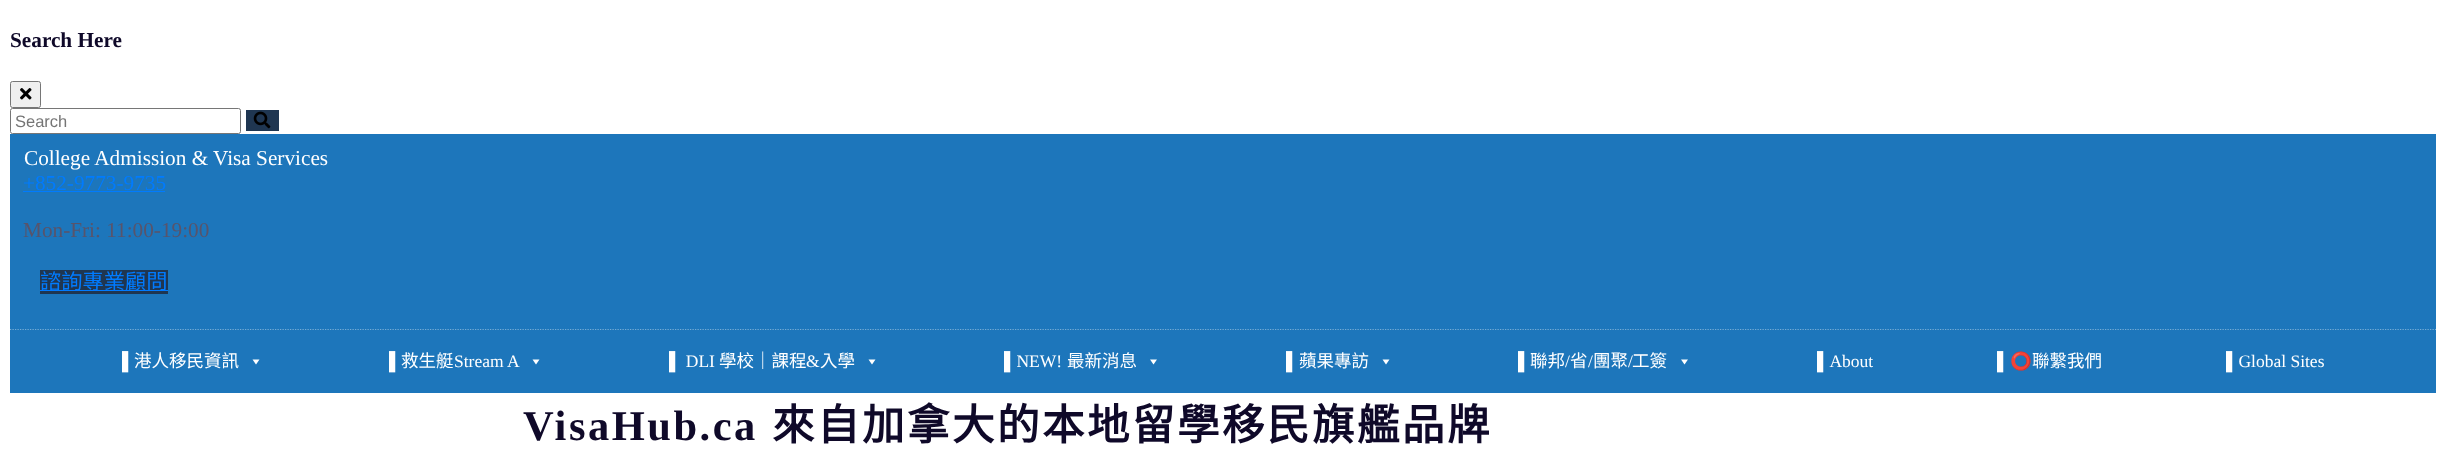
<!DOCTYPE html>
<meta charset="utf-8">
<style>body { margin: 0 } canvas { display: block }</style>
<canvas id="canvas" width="2446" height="450"></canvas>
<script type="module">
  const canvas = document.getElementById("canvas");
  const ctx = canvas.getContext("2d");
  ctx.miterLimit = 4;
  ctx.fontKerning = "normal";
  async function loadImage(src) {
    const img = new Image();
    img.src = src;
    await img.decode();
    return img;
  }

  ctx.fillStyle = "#ffffff";
  ctx.fillRect(0, 0, 2446, 450);
  ctx.font = "bold 21.25px Liberation Serif";
  ctx.fillStyle = "#0f0929";
  ctx.fillText("Search Here", 10, 47);
  ctx.fillStyle = "#efefef";
  ctx.beginPath();
  ctx.roundRect(10.5, 81.5, 30, 26, 2);
  ctx.fill();
  ctx.strokeStyle = "#767676";
  ctx.stroke();
  ctx.drawImage(await loadImage("img1.png"), 20, 88, 12, 12);
  ctx.beginPath();
  ctx.roundRect(10.5, 108.5, 230, 25, 2);
  ctx.stroke();
  ctx.font = "16.5px Liberation Sans";
  ctx.fillStyle = "#757575";
  ctx.fillText("Search", 15, 127);
  ctx.fillStyle = "#1f3651";
  ctx.fillRect(246, 110, 33, 21);
  ctx.drawImage(await loadImage("img2.png"), 253, 111, 18, 18);
  ctx.fillStyle = "#1d76bb";
  ctx.fillRect(10, 134, 2426, 196);
  ctx.beginPath();
  ctx.moveTo(10, 329.5);
  ctx.lineTo(2436, 329.5);
  ctx.strokeStyle = "#77add6";
  ctx.lineWidth = 1.2;
  ctx.setLineDash([1.25, 1.25]);
  ctx.stroke();
  ctx.font = "21.25px Liberation Serif";
  ctx.fillStyle = "#ffffff";
  ctx.fillText("College Admission & Visa Services", 24, 165);
  ctx.fillStyle = "#007bff";
  ctx.fillText("+852-9773-9735", 23, 190);
  ctx.fillRect(23, 191, 142, 1);
  ctx.fillStyle = "#58546b";
  ctx.fillText("Mon-Fri: 11:00-19:00", 23, 237);
  ctx.fillStyle = "#1f3651";
  ctx.fillRect(40, 270, 128, 24);
  ctx.fillStyle = "#007bff";
  ctx.fillRect(40, 290, 128, 1);
  ctx.font = "21.25px Noto Sans CJK TC";
  ctx.fillText("諮詢專業顧問", 40, 289);
  ctx.fillStyle = "#1d76bb";
  ctx.fillRect(10, 330, 2426, 63);
  ctx.font = "17.5px Liberation Serif";
  ctx.fillStyle = "#ffffff";
  ctx.fillText("▌", 122, 367);
  ctx.font = "17.5px Noto Sans CJK TC";
  ctx.fillText("港人移民資訊", 134, 367);
  ctx.beginPath();
  ctx.moveTo(259.5, 359.5);
  ctx.lineTo(256, 364.5);
  ctx.lineTo(252.5, 359.5);
  ctx.closePath();
  ctx.fill();
  ctx.font = "17.5px Liberation Serif";
  ctx.fillText("▌", 389, 367);
  ctx.font = "17.5px Noto Sans CJK TC";
  ctx.fillText("救生艇", 401, 367);
  ctx.font = "17.5px Liberation Serif";
  ctx.fillText("Stream A", 454, 367);
  ctx.beginPath();
  ctx.moveTo(539.5, 359.5);
  ctx.lineTo(536, 364.5);
  ctx.lineTo(532.5, 359.5);
  ctx.closePath();
  ctx.fill();
  ctx.fillText("▌ DLI", 669, 367);
  ctx.font = "17.5px Noto Sans CJK TC";
  ctx.fillText("學校｜課程", 719, 367);
  ctx.font = "17.5px Liberation Serif";
  ctx.fillText("&", 806, 367);
  ctx.font = "17.5px Noto Sans CJK TC";
  ctx.fillText("入學", 820, 367);
  ctx.beginPath();
  ctx.moveTo(875.5, 359.5);
  ctx.lineTo(872, 364.5);
  ctx.lineTo(868.5, 359.5);
  ctx.closePath();
  ctx.fill();
  ctx.font = "17.5px Liberation Serif";
  ctx.fillText("▌NEW!", 1004, 367);
  ctx.font = "17.5px Noto Sans CJK TC";
  ctx.fillText("最新消息", 1067, 367);
  ctx.beginPath();
  ctx.moveTo(1157, 359.5);
  ctx.lineTo(1153.5, 364.5);
  ctx.lineTo(1150, 359.5);
  ctx.closePath();
  ctx.fill();
  ctx.font = "17.5px Liberation Serif";
  ctx.fillText("▌", 1286, 367);
  ctx.font = "17.5px Noto Sans CJK TC";
  ctx.fillText("蘋果專訪", 1299, 367);
  ctx.beginPath();
  ctx.moveTo(1389.5, 359.5);
  ctx.lineTo(1386, 364.5);
  ctx.lineTo(1382.5, 359.5);
  ctx.closePath();
  ctx.fill();
  ctx.font = "17.5px Liberation Serif";
  ctx.fillText("▌", 1518, 367);
  ctx.font = "17.5px Noto Sans CJK TC";
  ctx.fillText("聯邦", 1530, 367);
  ctx.font = "17.5px Liberation Serif";
  ctx.fillText("/", 1565, 367);
  ctx.font = "17.5px Noto Sans CJK TC";
  ctx.fillText("省", 1570, 367);
  ctx.font = "17.5px Liberation Serif";
  ctx.fillText("/", 1588, 367);
  ctx.font = "17.5px Noto Sans CJK TC";
  ctx.fillText("團聚", 1593, 367);
  ctx.font = "17.5px Liberation Serif";
  ctx.fillText("/", 1628, 367);
  ctx.font = "17.5px Noto Sans CJK TC";
  ctx.fillText("工簽", 1632, 367);
  ctx.beginPath();
  ctx.moveTo(1688, 359.5);
  ctx.lineTo(1684.5, 364.5);
  ctx.lineTo(1681, 359.5);
  ctx.closePath();
  ctx.fill();
  ctx.font = "17.5px Liberation Serif";
  ctx.fillText("▌About", 1817, 367);
  ctx.fillText("▌", 1997, 367);
  ctx.font = "17.5px Noto Color Emoji";
  ctx.fillText("⭕️", 2010, 367);
  ctx.font = "17.5px Noto Sans CJK TC";
  ctx.fillText("聯繫我們", 2032, 367);
  ctx.font = "17.5px Liberation Serif";
  ctx.fillText("▌Global Sites", 2226, 367);
  ctx.letterSpacing = "2.5px";
  ctx.font = "bold 42.5px Liberation Serif";
  ctx.fillStyle = "#0f0929";
  ctx.fillText("VisaHub.ca", 523, 440);
  ctx.font = "bold 42.5px Noto Sans CJK TC";
  ctx.fillText("來自加拿大的本地留學移民旗艦品牌", 772, 440);
</script>
